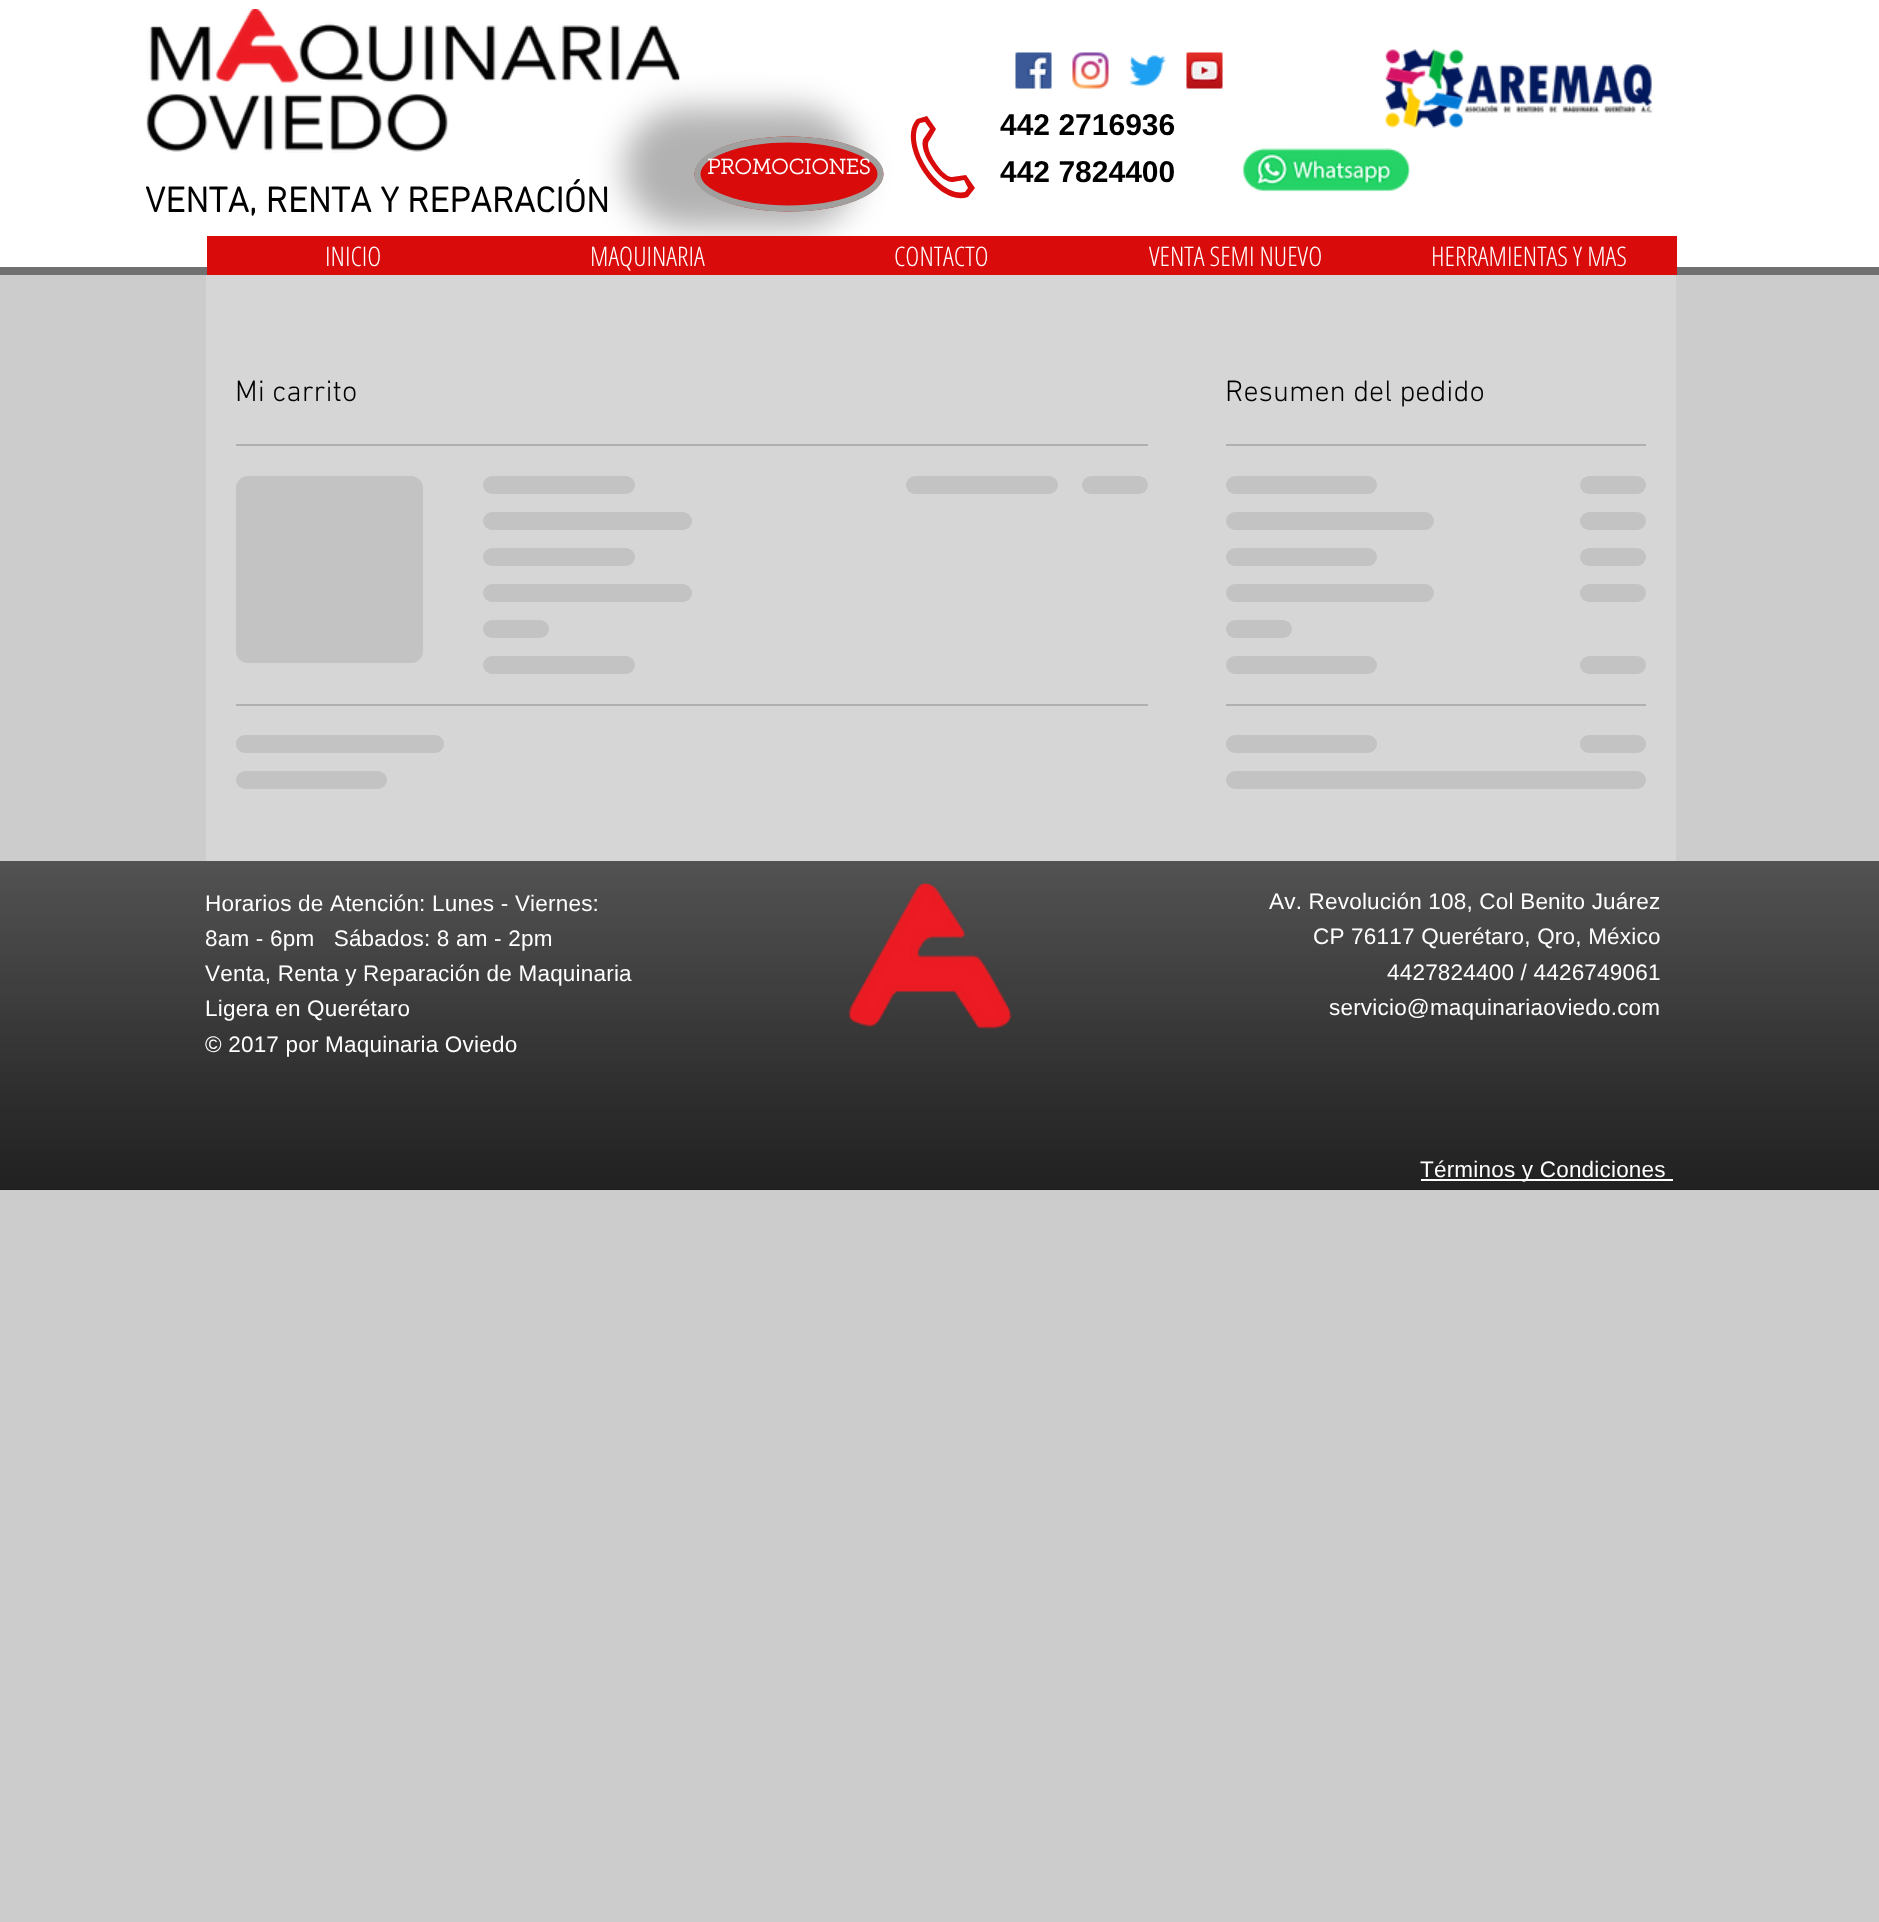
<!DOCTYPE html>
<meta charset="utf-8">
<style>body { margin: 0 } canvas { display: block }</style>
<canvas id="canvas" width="1879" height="1922"></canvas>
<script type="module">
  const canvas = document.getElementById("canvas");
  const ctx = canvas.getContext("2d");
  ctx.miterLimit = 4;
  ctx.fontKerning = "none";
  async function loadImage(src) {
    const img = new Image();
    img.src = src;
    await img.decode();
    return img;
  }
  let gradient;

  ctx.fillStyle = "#cccccc";
  ctx.fillRect(0, 0, 1879, 1922);
  ctx.fillStyle = "#ffffff";
  ctx.fillRect(0, 0, 1879, 267);
  ctx.fillStyle = "#707070";
  ctx.fillRect(0, 267, 1879, 8);
  ctx.drawImage(await loadImage("img1.png"), 146, 9, 534, 144);
  ctx.drawImage(await loadImage("img2.png"), 1015, 52, 37, 37);
  ctx.drawImage(await loadImage("img3.png"), 1072, 52, 37, 37);
  ctx.drawImage(await loadImage("img4.png"), 1129, 55, 37, 31);
  ctx.drawImage(await loadImage("img5.png"), 1186, 52, 37, 37);
  ctx.drawImage(await loadImage("img6.png"), 1384, 49, 269, 79);
  ctx.fillStyle = "rgba(0, 0, 0, 0.3)";
  ctx.filter = "blur(16.5px)";
  ctx.beginPath();
  ctx.roundRect(624, 108, 234, 120, 60);
  ctx.fill();
  ctx.filter = "none";
  ctx.fillStyle = "#d90b0b";
  ctx.beginPath();
  ctx.ellipse(789, 174, 94.5, 37.5, 0, 0, Math.PI * 2);
  ctx.fill();
  ctx.beginPath();
  ctx.moveTo(789, 139.5);
  ctx.bezierCurveTo(839.5, 139.5, 880.5, 155, 880.5, 174);
  ctx.bezierCurveTo(880.5, 193, 839.5, 208.5, 789, 208.5);
  ctx.bezierCurveTo(738.5, 208.5, 697.5, 193, 697.5, 174);
  ctx.bezierCurveTo(697.5, 155, 738.5, 139.5, 789, 139.5);
  ctx.closePath();
  ctx.strokeStyle = "#a0a09f";
  ctx.lineWidth = 6;
  ctx.stroke();
  ctx.font = "bold 21px 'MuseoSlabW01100'";
  ctx.fillStyle = "#ffffff";
  ctx.fillText("PROMOCIONES", 707, 174);
  ctx.fillStyle = "#d90b0b";
  ctx.beginPath();
  ctx.moveTo(966, 175);
  ctx.lineTo(952, 177);
  ctx.bezierCurveTo(951, 177, 945, 177, 935, 162);
  ctx.bezierCurveTo(926, 148, 928, 142, 929, 141);
  ctx.lineTo(936, 129);
  ctx.lineTo(927, 116);
  ctx.lineTo(917, 119);
  ctx.bezierCurveTo(895, 142, 937, 208, 968, 197);
  ctx.lineTo(975, 188);
  ctx.closePath();
  ctx.moveTo(965, 192);
  ctx.bezierCurveTo(939, 198, 904, 144, 920, 123);
  ctx.lineTo(925, 122);
  ctx.lineTo(930, 129);
  ctx.lineTo(924, 138);
  ctx.bezierCurveTo(923, 139, 919, 147, 931, 165);
  ctx.bezierCurveTo(943, 183, 952, 182, 953, 182);
  ctx.lineTo(964, 180);
  ctx.lineTo(968, 188);
  ctx.closePath();
  ctx.fill();
  ctx.font = "bold 30px Liberation Sans";
  ctx.fillStyle = "#000000";
  ctx.fillText("442 2716936", 1000, 135);
  ctx.drawImage(await loadImage("img7.png"), 1242, 148, 169, 44);
  ctx.fillText("442 7824400", 1000, 182);
  ctx.font = "bold 36px 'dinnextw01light'";
  ctx.fillText("VENTA, RENTA Y", 145, 212);
  ctx.fillText("REPARACIÓN", 407, 212);
  ctx.fillStyle = "#d90b0b";
  ctx.fillRect(207, 236, 1470, 39);
  ctx.font = "300 27px Open Sans Condensed";
  ctx.fillStyle = "#ffffff";
  ctx.fillText("INICIO", 325, 266);
  ctx.fillText("MAQUINARIA", 590, 266);
  ctx.fillText("CONTACTO", 894, 266);
  ctx.fillText("VENTA SEMI NUEVO", 1149, 266);
  ctx.fillText("HERRAMIENTAS Y MAS", 1431, 266);
  ctx.fillStyle = "#d6d6d6";
  ctx.fillRect(206, 275, 1470, 586);
  ctx.fillStyle = "#b0b0b0";
  ctx.fillRect(236, 444, 912, 2);
  ctx.font = "300 30px 'dinnextw01light'";
  ctx.fillStyle = "#000000";
  ctx.fillText("Mi carrito", 235, 401);
  gradient = ctx.createLinearGradient(236, 569, 986, 569);
  gradient.addColorStop(0.25, "#c3c3c3");
  gradient.addColorStop(0.37, "#b0b0b0");
  gradient.addColorStop(0.63, "#c3c3c3");
  ctx.fillStyle = gradient;
  ctx.beginPath();
  ctx.roundRect(236, 476, 187, 187, 12);
  ctx.fill();
  gradient = ctx.createLinearGradient(483, 485, 1089, 485);
  gradient.addColorStop(0.25, "#c3c3c3");
  gradient.addColorStop(0.37, "#b0b0b0");
  gradient.addColorStop(0.63, "#c3c3c3");
  ctx.fillStyle = gradient;
  ctx.beginPath();
  ctx.roundRect(483, 476, 152, 18, 9);
  ctx.fill();
  gradient = ctx.createLinearGradient(483, 521, 1317, 521);
  gradient.addColorStop(0.25, "#c3c3c3");
  gradient.addColorStop(0.37, "#b0b0b0");
  gradient.addColorStop(0.63, "#c3c3c3");
  ctx.fillStyle = gradient;
  ctx.beginPath();
  ctx.roundRect(483, 512, 209, 18, 9);
  ctx.fill();
  gradient = ctx.createLinearGradient(483, 557, 1089, 557);
  gradient.addColorStop(0.25, "#c3c3c3");
  gradient.addColorStop(0.37, "#b0b0b0");
  gradient.addColorStop(0.63, "#c3c3c3");
  ctx.fillStyle = gradient;
  ctx.beginPath();
  ctx.roundRect(483, 548, 152, 18, 9);
  ctx.fill();
  gradient = ctx.createLinearGradient(483, 593, 1317, 593);
  gradient.addColorStop(0.25, "#c3c3c3");
  gradient.addColorStop(0.37, "#b0b0b0");
  gradient.addColorStop(0.63, "#c3c3c3");
  ctx.fillStyle = gradient;
  ctx.beginPath();
  ctx.roundRect(483, 584, 209, 18, 9);
  ctx.fill();
  gradient = ctx.createLinearGradient(483, 629, 747, 629);
  gradient.addColorStop(0.25, "#c3c3c3");
  gradient.addColorStop(0.37, "#b0b0b0");
  gradient.addColorStop(0.63, "#c3c3c3");
  ctx.fillStyle = gradient;
  ctx.beginPath();
  ctx.roundRect(483, 620, 66, 18, 9);
  ctx.fill();
  gradient = ctx.createLinearGradient(483, 665, 1089, 665);
  gradient.addColorStop(0.25, "#c3c3c3");
  gradient.addColorStop(0.37, "#b0b0b0");
  gradient.addColorStop(0.63, "#c3c3c3");
  ctx.fillStyle = gradient;
  ctx.beginPath();
  ctx.roundRect(483, 656, 152, 18, 9);
  ctx.fill();
  gradient = ctx.createLinearGradient(906, 485, 1512, 485);
  gradient.addColorStop(0.25, "#c3c3c3");
  gradient.addColorStop(0.37, "#b0b0b0");
  gradient.addColorStop(0.63, "#c3c3c3");
  ctx.fillStyle = gradient;
  ctx.beginPath();
  ctx.roundRect(906, 476, 152, 18, 9);
  ctx.fill();
  gradient = ctx.createLinearGradient(1082, 485, 1346, 485);
  gradient.addColorStop(0.25, "#c3c3c3");
  gradient.addColorStop(0.37, "#b0b0b0");
  gradient.addColorStop(0.63, "#c3c3c3");
  ctx.fillStyle = gradient;
  ctx.beginPath();
  ctx.roundRect(1082, 476, 66, 18, 9);
  ctx.fill();
  ctx.fillStyle = "#b0b0b0";
  ctx.fillRect(236, 704, 912, 2);
  gradient = ctx.createLinearGradient(236, 744, 1070, 744);
  gradient.addColorStop(0.25, "#c3c3c3");
  gradient.addColorStop(0.37, "#b0b0b0");
  gradient.addColorStop(0.63, "#c3c3c3");
  ctx.fillStyle = gradient;
  ctx.beginPath();
  ctx.roundRect(236, 735, 208, 18, 9);
  ctx.fill();
  gradient = ctx.createLinearGradient(236, 780, 842, 780);
  gradient.addColorStop(0.25, "#c3c3c3");
  gradient.addColorStop(0.37, "#b0b0b0");
  gradient.addColorStop(0.63, "#c3c3c3");
  ctx.fillStyle = gradient;
  ctx.beginPath();
  ctx.roundRect(236, 771, 151, 18, 9);
  ctx.fill();
  ctx.fillStyle = "#b0b0b0";
  ctx.fillRect(1226, 444, 420, 2);
  ctx.fillStyle = "#000000";
  ctx.fillText("Resumen del pedido", 1225, 401);
  gradient = ctx.createLinearGradient(1226, 485, 1832, 485);
  gradient.addColorStop(0.25, "#c3c3c3");
  gradient.addColorStop(0.37, "#b0b0b0");
  gradient.addColorStop(0.63, "#c3c3c3");
  ctx.fillStyle = gradient;
  ctx.beginPath();
  ctx.roundRect(1226, 476, 151, 18, 9);
  ctx.fill();
  gradient = ctx.createLinearGradient(1580, 485, 1844, 485);
  gradient.addColorStop(0.25, "#c3c3c3");
  gradient.addColorStop(0.37, "#b0b0b0");
  gradient.addColorStop(0.63, "#c3c3c3");
  ctx.fillStyle = gradient;
  ctx.beginPath();
  ctx.roundRect(1580, 476, 66, 18, 9);
  ctx.fill();
  gradient = ctx.createLinearGradient(1226, 521, 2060, 521);
  gradient.addColorStop(0.25, "#c3c3c3");
  gradient.addColorStop(0.37, "#b0b0b0");
  gradient.addColorStop(0.63, "#c3c3c3");
  ctx.fillStyle = gradient;
  ctx.beginPath();
  ctx.roundRect(1226, 512, 208, 18, 9);
  ctx.fill();
  gradient = ctx.createLinearGradient(1580, 521, 1844, 521);
  gradient.addColorStop(0.25, "#c3c3c3");
  gradient.addColorStop(0.37, "#b0b0b0");
  gradient.addColorStop(0.63, "#c3c3c3");
  ctx.fillStyle = gradient;
  ctx.beginPath();
  ctx.roundRect(1580, 512, 66, 18, 9);
  ctx.fill();
  gradient = ctx.createLinearGradient(1226, 557, 1832, 557);
  gradient.addColorStop(0.25, "#c3c3c3");
  gradient.addColorStop(0.37, "#b0b0b0");
  gradient.addColorStop(0.63, "#c3c3c3");
  ctx.fillStyle = gradient;
  ctx.beginPath();
  ctx.roundRect(1226, 548, 151, 18, 9);
  ctx.fill();
  gradient = ctx.createLinearGradient(1580, 557, 1844, 557);
  gradient.addColorStop(0.25, "#c3c3c3");
  gradient.addColorStop(0.37, "#b0b0b0");
  gradient.addColorStop(0.63, "#c3c3c3");
  ctx.fillStyle = gradient;
  ctx.beginPath();
  ctx.roundRect(1580, 548, 66, 18, 9);
  ctx.fill();
  gradient = ctx.createLinearGradient(1226, 593, 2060, 593);
  gradient.addColorStop(0.25, "#c3c3c3");
  gradient.addColorStop(0.37, "#b0b0b0");
  gradient.addColorStop(0.63, "#c3c3c3");
  ctx.fillStyle = gradient;
  ctx.beginPath();
  ctx.roundRect(1226, 584, 208, 18, 9);
  ctx.fill();
  gradient = ctx.createLinearGradient(1580, 593, 1844, 593);
  gradient.addColorStop(0.25, "#c3c3c3");
  gradient.addColorStop(0.37, "#b0b0b0");
  gradient.addColorStop(0.63, "#c3c3c3");
  ctx.fillStyle = gradient;
  ctx.beginPath();
  ctx.roundRect(1580, 584, 66, 18, 9);
  ctx.fill();
  gradient = ctx.createLinearGradient(1226, 629, 1490, 629);
  gradient.addColorStop(0.25, "#c3c3c3");
  gradient.addColorStop(0.37, "#b0b0b0");
  gradient.addColorStop(0.63, "#c3c3c3");
  ctx.fillStyle = gradient;
  ctx.beginPath();
  ctx.roundRect(1226, 620, 66, 18, 9);
  ctx.fill();
  gradient = ctx.createLinearGradient(1226, 665, 1832, 665);
  gradient.addColorStop(0.25, "#c3c3c3");
  gradient.addColorStop(0.37, "#b0b0b0");
  gradient.addColorStop(0.63, "#c3c3c3");
  ctx.fillStyle = gradient;
  ctx.beginPath();
  ctx.roundRect(1226, 656, 151, 18, 9);
  ctx.fill();
  gradient = ctx.createLinearGradient(1580, 665, 1844, 665);
  gradient.addColorStop(0.25, "#c3c3c3");
  gradient.addColorStop(0.37, "#b0b0b0");
  gradient.addColorStop(0.63, "#c3c3c3");
  ctx.fillStyle = gradient;
  ctx.beginPath();
  ctx.roundRect(1580, 656, 66, 18, 9);
  ctx.fill();
  ctx.fillStyle = "#b0b0b0";
  ctx.fillRect(1226, 704, 420, 2);
  gradient = ctx.createLinearGradient(1226, 744, 1832, 744);
  gradient.addColorStop(0.25, "#c3c3c3");
  gradient.addColorStop(0.37, "#b0b0b0");
  gradient.addColorStop(0.63, "#c3c3c3");
  ctx.fillStyle = gradient;
  ctx.beginPath();
  ctx.roundRect(1226, 735, 151, 18, 9);
  ctx.fill();
  gradient = ctx.createLinearGradient(1580, 744, 1844, 744);
  gradient.addColorStop(0.25, "#c3c3c3");
  gradient.addColorStop(0.37, "#b0b0b0");
  gradient.addColorStop(0.63, "#c3c3c3");
  ctx.fillStyle = gradient;
  ctx.beginPath();
  ctx.roundRect(1580, 735, 66, 18, 9);
  ctx.fill();
  gradient = ctx.createLinearGradient(1226, 780, 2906, 780);
  gradient.addColorStop(0.25, "#c3c3c3");
  gradient.addColorStop(0.37, "#b0b0b0");
  gradient.addColorStop(0.63, "#c3c3c3");
  ctx.fillStyle = gradient;
  ctx.beginPath();
  ctx.roundRect(1226, 771, 420, 18, 9);
  ctx.fill();
  ctx.fillStyle = "#171717";
  ctx.fillRect(0, 861, 1879, 329);
  ctx.drawImage(await loadImage("img8.png"), 0, 861, 1879, 329);
  ctx.letterSpacing = "0.2px";
  ctx.font = "22.5px Liberation Sans";
  ctx.fillStyle = "#ffffff";
  ctx.fillText("Horarios de Atención: Lunes - Viernes:", 205, 911);
  ctx.fillText("8am - 6pm   Sábados: 8 am - 2pm", 205, 946);
  ctx.fillText("Venta, Renta y Reparación de Maquinaria", 205, 981);
  ctx.fillText("Ligera en Querétaro", 205, 1016);
  ctx.fillText("© 2017 por Maquinaria Oviedo", 205, 1052);
  ctx.drawImage(await loadImage("img9.png"), 848, 883, 164, 147);
  ctx.fillText("Av. Revolución 108, Col Benito Juárez", 1269, 909);
  ctx.fillText("CP 76117 Querétaro, Qro, México", 1313, 944);
  ctx.fillText("4427824400 / 4426749061", 1387, 980);
  ctx.fillText("servicio@maquinariaoviedo.com", 1329, 1015);
  ctx.fillRect(1421, 1179, 252, 2);
  ctx.fillText("Términos y Condiciones", 1420, 1177);
</script>
